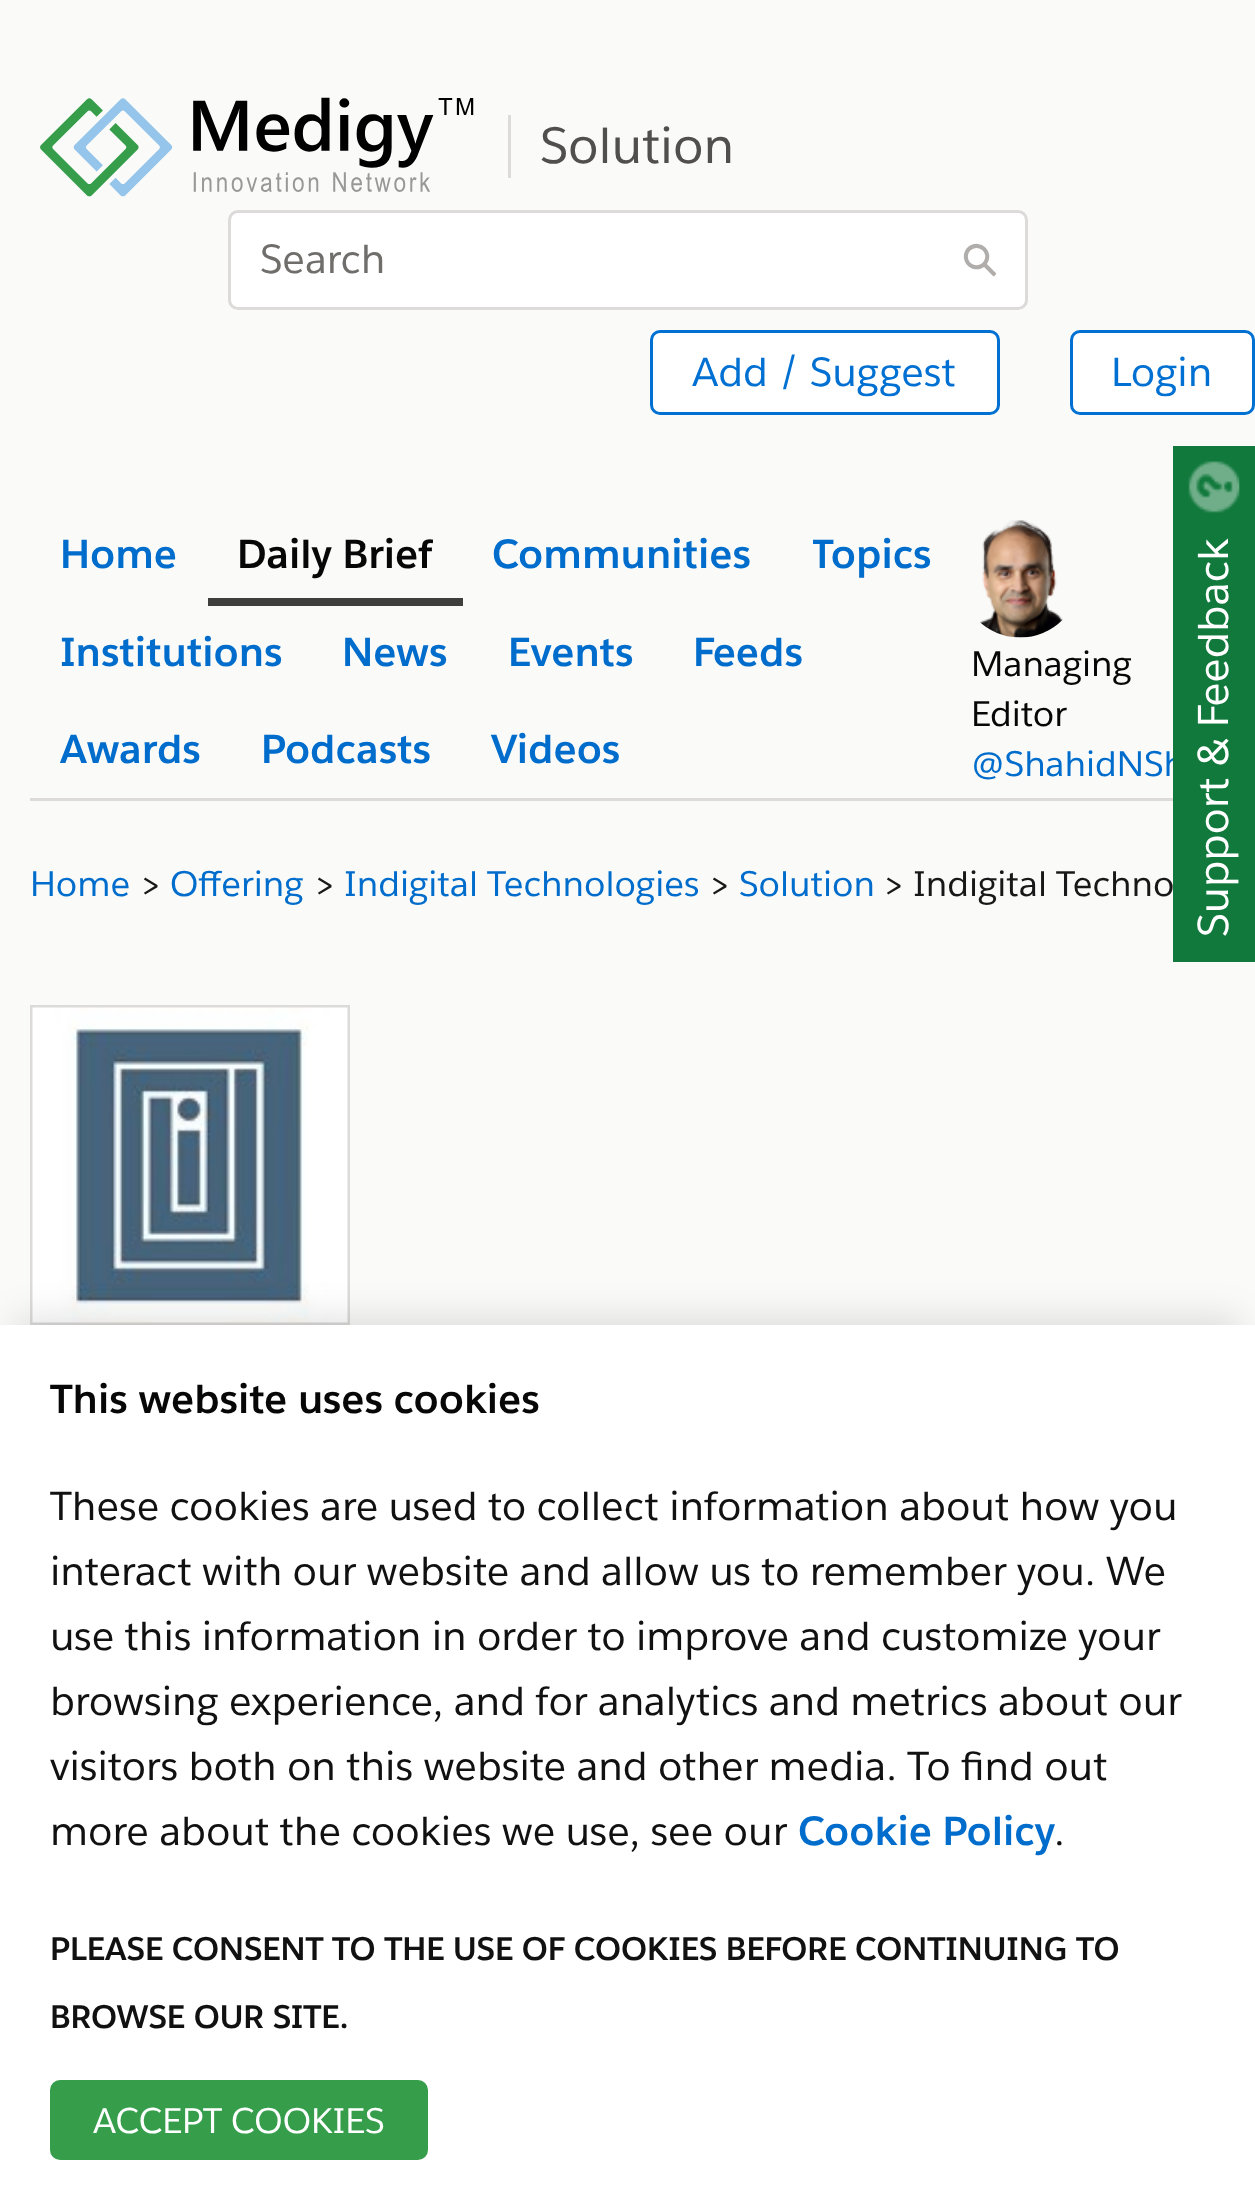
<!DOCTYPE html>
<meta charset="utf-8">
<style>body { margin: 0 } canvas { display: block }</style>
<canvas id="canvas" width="1255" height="2210"></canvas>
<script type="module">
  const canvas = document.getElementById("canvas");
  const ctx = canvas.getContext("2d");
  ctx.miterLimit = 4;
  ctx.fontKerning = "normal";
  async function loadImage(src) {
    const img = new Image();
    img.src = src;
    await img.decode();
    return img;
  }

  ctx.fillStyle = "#fafaf9";
  ctx.fillRect(0, 0, 1255, 2210);
  ctx.fillStyle = "#dddbda";
  ctx.fillRect(30, 798, 1143, 3);
  ctx.drawImage(await loadImage("img1.png"), 40, 97, 434, 100);
  ctx.fillRect(508, 115, 3, 63);
  ctx.font = "50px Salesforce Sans";
  ctx.fillStyle = "#514f4d";
  ctx.fillText("Solution", 540, 163);
  ctx.fillStyle = "#ffffff";
  ctx.beginPath();
  ctx.roundRect(229.5, 211.5, 797, 97, 8.5);
  ctx.fill();
  ctx.strokeStyle = "#dddbda";
  ctx.lineWidth = 3;
  ctx.stroke();
  ctx.font = "40px Salesforce Sans";
  ctx.fillStyle = "#706e6b";
  ctx.fillText("Search", 260, 273);
  ctx.drawImage(await loadImage("img2.png"), 963, 243, 34, 34);
  ctx.fillStyle = "#ffffff";
  ctx.beginPath();
  ctx.roundRect(651.5, 331.5, 347, 82, 8.5);
  ctx.fill();
  ctx.strokeStyle = "#0070d2";
  ctx.stroke();
  ctx.fillStyle = "#0070d2";
  ctx.fillText("Add / Suggest", 692, 386);
  ctx.fillStyle = "#ffffff";
  ctx.beginPath();
  ctx.roundRect(1071.5, 331.5, 182, 82, 8.5);
  ctx.fill();
  ctx.stroke();
  ctx.fillStyle = "#0070d2";
  ctx.fillText("Login", 1111, 386);
  ctx.font = "bold 40px Salesforce Sans";
  ctx.fillStyle = "#006dcc";
  ctx.fillText("Home", 60, 568);
  ctx.save();
  ctx.beginPath();
  ctx.rect(238, 505, 195, 100);
  ctx.clip();
  ctx.fillStyle = "#080707";
  ctx.fillText("Daily Brief", 237, 568);
  ctx.restore();
  ctx.fillStyle = "#3e3e3c";
  ctx.fillRect(208, 598, 255, 8);
  ctx.fillStyle = "#006dcc";
  ctx.fillText("Communities", 492, 568);
  ctx.save();
  ctx.beginPath();
  ctx.rect(813, 505, 120, 100);
  ctx.clip();
  ctx.fillText("Topics", 811, 568);
  ctx.restore();
  ctx.fillText("Institutions", 60, 666);
  ctx.fillText("News", 342, 666);
  ctx.fillText("Events", 508, 666);
  ctx.fillText("Feeds", 693, 666);
  ctx.fillText("Awards", 60, 763);
  ctx.fillText("Podcasts", 261, 763);
  ctx.fillText("Videos", 491, 763);
  ctx.drawImage(await loadImage("img3.png"), 980, 520, 83, 118);
  ctx.font = "35px Salesforce Sans";
  ctx.fillStyle = "#080707";
  ctx.fillText("Managing", 971, 676);
  ctx.fillText("Editor", 971, 726);
  ctx.fillStyle = "#006dcc";
  ctx.fillText("@ShahidNSh", 971, 776);
  ctx.fillStyle = "#11793c";
  ctx.fillRect(1173, 446, 82, 516);
  ctx.drawImage(await loadImage("img4.png"), 1188, 461, 52, 52);
  ctx.font = "42.5px Salesforce Sans";
  ctx.fillStyle = "#ffffff";
  ctx.save();
  ctx.translate(1228, 937);
  ctx.rotate(-90 * Math.PI / 180);
  ctx.fillText("Support & Feedback", 0, 0);
  ctx.restore();
  ctx.font = "35px Salesforce Sans";
  ctx.fillStyle = "#006dcc";
  ctx.fillText("Home", 30, 896);
  ctx.fillStyle = "#181818";
  ctx.fillText(">", 140, 896);
  ctx.fillStyle = "#006dcc";
  ctx.fillText("Offering", 170, 896);
  ctx.fillStyle = "#181818";
  ctx.fillText(">", 314, 896);
  ctx.fillStyle = "#006dcc";
  ctx.fillText("Indigital Technologies", 344, 896);
  ctx.fillStyle = "#181818";
  ctx.fillText(">", 709, 896);
  ctx.fillStyle = "#006dcc";
  ctx.fillText("Solution", 739, 896);
  ctx.fillStyle = "#181818";
  ctx.fillText(">", 883, 896);
  ctx.fillText("Indigital Techno", 913, 896);
  ctx.strokeStyle = "#dddbda";
  ctx.strokeRect(31.5, 1006.5, 317, 317);
  ctx.drawImage(await loadImage("img5.png"), 32, 1007, 316, 316);
  ctx.fillStyle = "rgba(0, 0, 0, 0.12)";
  ctx.filter = "blur(17.5px)";
  ctx.beginPath();
  ctx.rect(15, 1318, 1225, 855);
  ctx.fill();
  ctx.filter = "none";
  ctx.fillStyle = "#ffffff";
  ctx.fillRect(0, 1325, 1255, 885);
  ctx.font = "bold 40px Salesforce Sans";
  ctx.fillStyle = "#080707";
  ctx.fillText("This website uses cookies", 50, 1413);
  ctx.font = "40px Salesforce Sans";
  ctx.fillStyle = "#111111";
  ctx.fillText("These cookies are used to collect information about how you", 50, 1520);
  ctx.fillText("interact with our website and allow us to remember you. We", 50, 1585);
  ctx.fillText("use this information in order to improve and customize your", 50, 1650);
  ctx.fillText("browsing experience, and for analytics and metrics about our", 50, 1715);
  ctx.fillText("visitors both on this website and other media. To find out", 50, 1780);
  ctx.fillText("more about the cookies we use, see our", 50, 1845);
  ctx.font = "bold 40px Salesforce Sans";
  ctx.fillStyle = "#006dcc";
  ctx.fillText("Cookie Policy", 798, 1845);
  ctx.font = "40px Salesforce Sans";
  ctx.fillStyle = "#111111";
  ctx.fillText(".", 1054, 1845);
  ctx.font = "bold 32px Salesforce Sans";
  ctx.fillText("PLEASE CONSENT TO THE USE OF COOKIES BEFORE CONTINUING TO", 50, 1960);
  ctx.fillText("BROWSE OUR SITE.", 50, 2028);
  ctx.fillStyle = "#369e4b";
  ctx.beginPath();
  ctx.roundRect(51.5, 2081.5, 375, 77, 8.5);
  ctx.fill();
  ctx.strokeStyle = "#369e4b";
  ctx.stroke();
  ctx.font = "35px Salesforce Sans";
  ctx.fillStyle = "#ffffff";
  ctx.fillText("ACCEPT COOKIES", 93, 2133);
</script>
